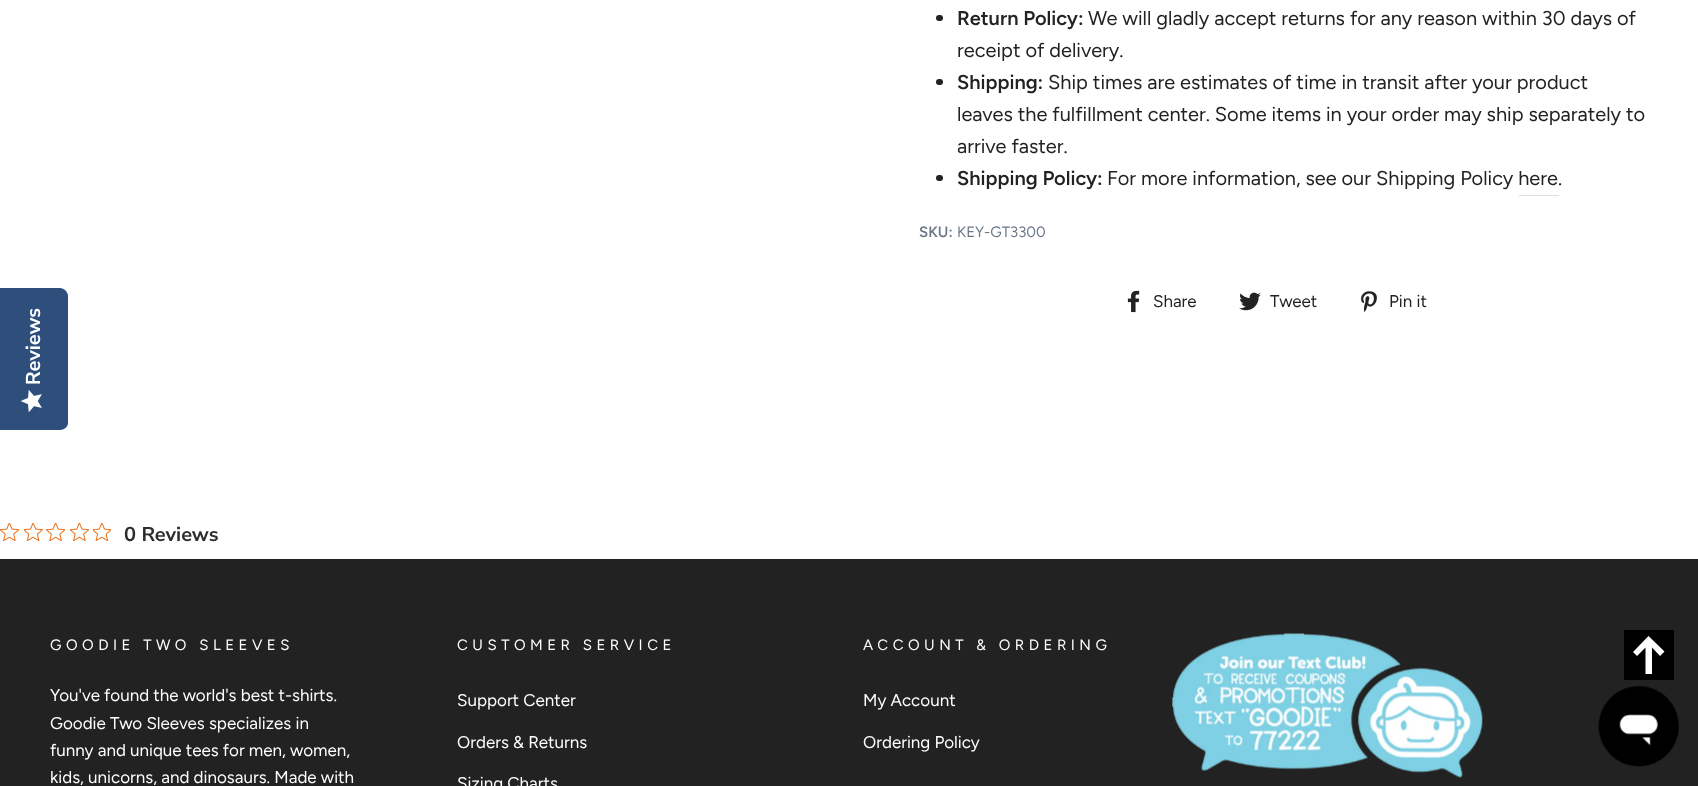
<!DOCTYPE html>
<meta charset="utf-8">
<style>body { margin: 0 } canvas { display: block }</style>
<canvas id="canvas" width="1698" height="786"></canvas>
<script type="module">
  const canvas = document.getElementById("canvas");
  const ctx = canvas.getContext("2d");
  ctx.miterLimit = 4;
  ctx.fontKerning = "normal";
  async function loadImage(src) {
    const img = new Image();
    img.src = src;
    await img.decode();
    return img;
  }

  ctx.fillStyle = "#ffffff";
  ctx.fillRect(0, 0, 1698, 786);
  ctx.fillStyle = "#2e4f7c";
  ctx.beginPath();
  ctx.moveTo(0, 430);
  ctx.lineTo(0, 288);
  ctx.lineTo(60, 288);
  ctx.bezierCurveTo(64, 288, 68, 292, 68, 296);
  ctx.lineTo(68, 423);
  ctx.bezierCurveTo(68, 427, 64, 430, 60, 430);
  ctx.closePath();
  ctx.fill();
  ctx.font = "200 20px Nunito Sans";
  ctx.fillStyle = "#ffffff";
  ctx.save();
  ctx.translate(40, 385);
  ctx.rotate(-90 * Math.PI / 180);
  ctx.fillText("Reviews", 0, 0);
  ctx.restore();
  ctx.drawImage(await loadImage("img1.png"), 20, 390, 22, 22);
  ctx.fillStyle = "#222222";
  ctx.beginPath();
  ctx.roundRect(936, 15, 7, 6, 3);
  ctx.fill();
  ctx.font = "600 20px Figtree";
  ctx.fillText("Return Policy:", 957, 25);
  ctx.font = "20px Figtree";
  ctx.fillText("We will gladly accept returns for any reason within 30 days of", 1088, 25);
  ctx.fillText("receipt of delivery.", 957, 57);
  ctx.beginPath();
  ctx.roundRect(936, 79, 7, 6, 3);
  ctx.fill();
  ctx.font = "600 20px Figtree";
  ctx.fillText("Shipping:", 957, 89);
  ctx.font = "20px Figtree";
  ctx.fillText("Ship times are estimates of time in transit after your product", 1048, 89);
  ctx.fillText("leaves the fulfillment center. Some items in your order may ship separately to", 957, 121);
  ctx.fillText("arrive faster.", 957, 153);
  ctx.beginPath();
  ctx.roundRect(936, 175, 7, 6, 3);
  ctx.fill();
  ctx.font = "600 20px Figtree";
  ctx.fillText("Shipping Policy:", 957, 185);
  ctx.font = "20px Figtree";
  ctx.fillText("For more information, see our Shipping Policy here", 1107, 185);
  ctx.fillText(".", 1558, 185);
  ctx.fillStyle = "#dedede";
  ctx.fillRect(1519, 195, 40, 1);
  ctx.font = "600 15px Figtree";
  ctx.fillStyle = "#6a7889";
  ctx.fillText("SKU:", 919, 237);
  ctx.font = "15px Figtree";
  ctx.fillText("KEY-GT3300", 957, 237);
  ctx.drawImage(await loadImage("img2.png"), 1127, 290, 13, 23);
  ctx.font = "17px Figtree";
  ctx.fillStyle = "#222222";
  ctx.fillText("Share", 1153, 307);
  ctx.drawImage(await loadImage("img3.png"), 1239, 292, 22, 19);
  ctx.fillText("Tweet", 1270, 307);
  ctx.drawImage(await loadImage("img4.png"), 1361, 291, 16, 21);
  ctx.fillText("Pin it", 1389, 307);
  ctx.drawImage(await loadImage("img5.png"), 0, 523, 19, 18);
  ctx.drawImage(await loadImage("img6.png"), 24, 523, 19, 18);
  ctx.drawImage(await loadImage("img7.png"), 46, 523, 19, 18);
  ctx.drawImage(await loadImage("img5.png"), 70, 523, 19, 18);
  ctx.drawImage(await loadImage("img8.png"), 93, 523, 18, 18);
  ctx.font = "200 20px Nunito Sans";
  ctx.fillStyle = "#2c2c2c";
  ctx.fillText("0 Reviews", 124, 541);
  ctx.fillStyle = "#222222";
  ctx.fillRect(0, 559, 1698, 227);
  ctx.letterSpacing = "4.5px";
  ctx.font = "15px Figtree";
  ctx.fillStyle = "#ffffff";
  ctx.fillText("GOODIE TWO SLEEVES", 50, 650);
  ctx.letterSpacing = "0px";
  ctx.font = "17px Figtree";
  ctx.fillText("You've found the world's best t-shirts.", 50, 701);
  ctx.fillText("Goodie Two Sleeves specializes in", 50, 729);
  ctx.fillText("funny and unique tees for men, women,", 50, 756);
  ctx.fillText("kids, unicorns, and dinosaurs. Made with", 50, 783);
  ctx.letterSpacing = "4.5px";
  ctx.font = "15px Figtree";
  ctx.fillText("CUSTOMER SERVICE", 457, 650);
  ctx.letterSpacing = "0px";
  ctx.font = "17px Figtree";
  ctx.fillText("Support Center", 457, 706);
  ctx.fillText("Orders & Returns", 457, 748);
  ctx.fillText("Sizing Charts", 457, 789);
  ctx.letterSpacing = "4.5px";
  ctx.font = "15px Figtree";
  ctx.fillText("ACCOUNT & ORDERING", 863, 650);
  ctx.letterSpacing = "0px";
  ctx.font = "17px Figtree";
  ctx.fillText("My Account", 863, 706);
  ctx.fillText("Ordering Policy", 863, 748);
  ctx.drawImage(await loadImage("img9.png"), 1172, 633, 311, 145);
  ctx.fillStyle = "#000000";
  ctx.fillRect(1624, 630, 50, 50);
  ctx.fillStyle = "#ffffff";
  ctx.beginPath();
  ctx.moveTo(1645.5, 647.5);
  ctx.lineTo(1645.5, 674);
  ctx.lineTo(1652, 674);
  ctx.lineTo(1652, 647.5);
  ctx.lineTo(1660, 656);
  ctx.lineTo(1664.5, 651.5);
  ctx.lineTo(1648.5, 636);
  ctx.lineTo(1633, 652);
  ctx.lineTo(1637, 656);
  ctx.closePath();
  ctx.fill();
  ctx.drawImage(await loadImage("img10.png"), 1598, 686, 81, 81);
</script>
